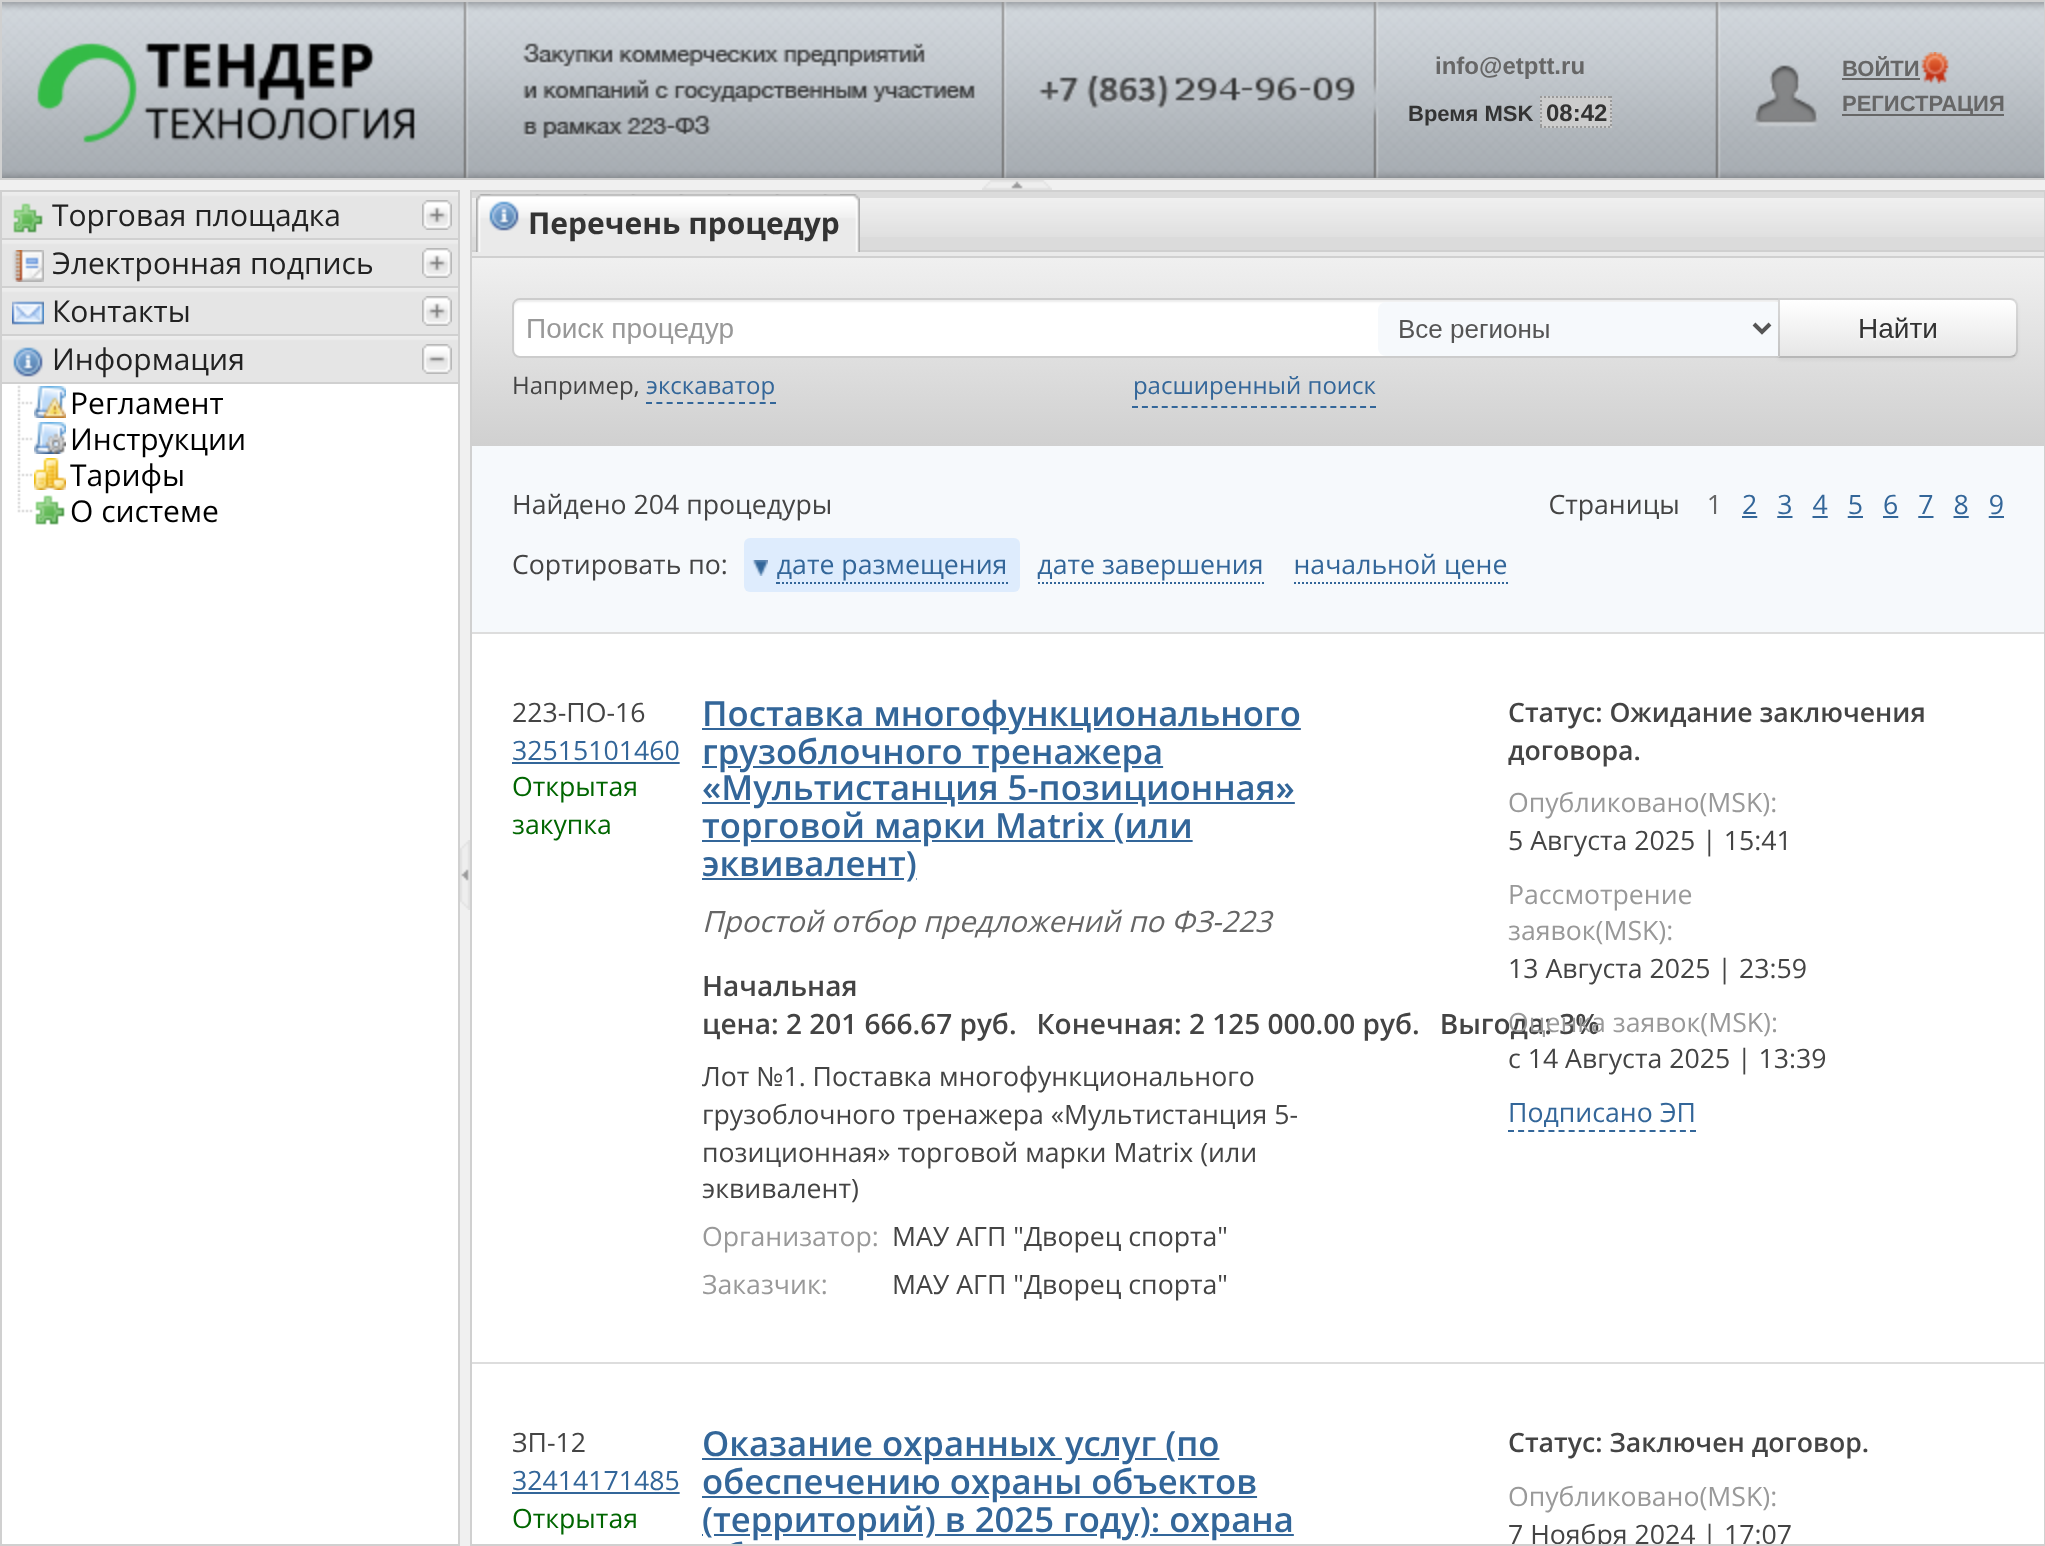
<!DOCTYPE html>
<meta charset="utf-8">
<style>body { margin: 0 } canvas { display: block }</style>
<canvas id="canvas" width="2045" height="1546"></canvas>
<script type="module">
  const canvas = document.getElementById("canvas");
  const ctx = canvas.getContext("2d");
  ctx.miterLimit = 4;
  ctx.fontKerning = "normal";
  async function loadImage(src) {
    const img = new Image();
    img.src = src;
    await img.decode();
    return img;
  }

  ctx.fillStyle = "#f0f0f0";
  ctx.fillRect(0, 0, 2045, 1546);
  ctx.strokeStyle = "#d0d0d0";
  ctx.lineWidth = 2;
  ctx.strokeRect(1, 1, 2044, 178);
  ctx.drawImage(await loadImage("img1.png"), 2, 2, 2042, 176);
  ctx.drawImage(await loadImage("img2.png"), 37, 2, 1781, 176);
  ctx.font = "bold 24px Liberation Sans";
  ctx.fillStyle = "#666666";
  ctx.fillText("info@etptt.ru", 1435, 74);
  ctx.font = "bold 22px Liberation Sans";
  ctx.fillStyle = "#333333";
  ctx.fillText("Время MSK", 1408, 121);
  ctx.fillStyle = "#cccccc";
  ctx.fillRect(1540, 96, 72, 32);
  ctx.font = "bold 24px Liberation Sans";
  ctx.fillStyle = "#333333";
  ctx.fillText("08:42", 1546, 121);
  ctx.beginPath();
  ctx.moveTo(1540, 97);
  ctx.lineTo(1612, 97);
  ctx.strokeStyle = "#999999";
  ctx.setLineDash([2, 2]);
  ctx.stroke();
  ctx.beginPath();
  ctx.moveTo(1611, 96);
  ctx.lineTo(1611, 128);
  ctx.stroke();
  ctx.beginPath();
  ctx.moveTo(1540, 127);
  ctx.lineTo(1612, 127);
  ctx.stroke();
  ctx.beginPath();
  ctx.moveTo(1541, 96);
  ctx.lineTo(1541, 128);
  ctx.stroke();
  ctx.font = "bold 22px Liberation Sans";
  ctx.fillStyle = "#666666";
  ctx.fillText("ВОЙТИ", 1842, 76);
  ctx.fillRect(1842, 78, 78, 2);
  ctx.drawImage(await loadImage("img3.png"), 1921, 52, 28, 32);
  ctx.fillRect(1842, 114, 162, 2);
  ctx.fillText("РЕГИСТРАЦИЯ", 1842, 111);
  ctx.drawImage(await loadImage("img4.png"), 982, 180, 70, 10);
  ctx.fillStyle = "#ffffff";
  ctx.fillRect(2, 384, 456, 1160);
  ctx.strokeStyle = "#d0d0d0";
  ctx.setLineDash([]);
  ctx.strokeRect(1, 191, 458, 1354);
  ctx.drawImage(await loadImage("img5.png"), 2, 192, 456, 46);
  ctx.fillStyle = "#d0d0d0";
  ctx.fillRect(2, 238, 456, 2);
  ctx.drawImage(await loadImage("img6.png"), 13, 203, 30, 30);
  ctx.font = "30px Open Sans";
  ctx.fillStyle = "#222222";
  ctx.fillText("Торговая площадка", 52, 226);
  ctx.drawImage(await loadImage("img7.png"), 422, 200, 30, 30);
  ctx.drawImage(await loadImage("img5.png"), 2, 240, 456, 46);
  ctx.fillStyle = "#d0d0d0";
  ctx.fillRect(2, 286, 456, 2);
  ctx.drawImage(await loadImage("img8.png"), 12, 250, 32, 32);
  ctx.fillStyle = "#222222";
  ctx.fillText("Электронная подпись", 52, 274);
  ctx.drawImage(await loadImage("img7.png"), 422, 248, 30, 30);
  ctx.drawImage(await loadImage("img5.png"), 2, 288, 456, 46);
  ctx.fillStyle = "#d0d0d0";
  ctx.fillRect(2, 334, 456, 2);
  ctx.drawImage(await loadImage("img9.png"), 12, 301, 32, 24);
  ctx.fillStyle = "#222222";
  ctx.fillText("Контакты", 52, 322);
  ctx.drawImage(await loadImage("img7.png"), 422, 296, 30, 30);
  ctx.drawImage(await loadImage("img5.png"), 2, 336, 456, 46);
  ctx.fillStyle = "#d0d0d0";
  ctx.fillRect(2, 382, 456, 2);
  ctx.drawImage(await loadImage("img10.png"), 13, 347, 30, 30);
  ctx.fillStyle = "#222222";
  ctx.fillText("Информация", 52, 370);
  ctx.drawImage(await loadImage("img11.png"), 422, 344, 30, 30);
  ctx.drawImage(await loadImage("img12.png"), 17, 385, 16, 35);
  ctx.drawImage(await loadImage("img13.png"), 34, 386, 32, 32);
  ctx.fillStyle = "#000000";
  ctx.fillText("Регламент", 70, 414);
  ctx.drawImage(await loadImage("img12.png"), 17, 421, 16, 35);
  ctx.drawImage(await loadImage("img14.png"), 34, 422, 32, 32);
  ctx.fillText("Инструкции", 70, 450);
  ctx.drawImage(await loadImage("img12.png"), 17, 457, 16, 35);
  ctx.drawImage(await loadImage("img15.png"), 34, 458, 32, 32);
  ctx.fillText("Тарифы", 70, 486);
  ctx.drawImage(await loadImage("img16.png"), 17, 493, 16, 20);
  ctx.drawImage(await loadImage("img17.png"), 35, 495, 30, 30);
  ctx.fillText("О системе", 70, 522);
  ctx.fillStyle = "#eaeaea";
  ctx.fillRect(472, 252, 1572, 4);
  ctx.strokeRect(471, 191, 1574, 66);
  ctx.fillStyle = "#dbdbdb";
  ctx.fillRect(472, 192, 1572, 58);
  ctx.drawImage(await loadImage("img18.png"), 472, 198, 1572, 39);
  ctx.fillStyle = "#d0d0d0";
  ctx.fillRect(472, 250, 1572, 2);
  ctx.drawImage(await loadImage("img19.png"), 476, 194, 14, 58);
  ctx.drawImage(await loadImage("img20.png"), 840, 194, 20, 58);
  ctx.drawImage(await loadImage("img21.png"), 490, 194, 350, 58);
  ctx.drawImage(await loadImage("img22.png"), 489, 201, 30, 30);
  ctx.font = "bold 30px Open Sans";
  ctx.fillStyle = "#333333";
  ctx.fillText("Перечень процедур", 528, 234);
  ctx.fillStyle = "#d0d0d0";
  ctx.fillRect(2044, 258, 1, 1288);
  ctx.fillRect(470, 1544, 1575, 2);
  ctx.fillRect(470, 258, 2, 1288);
  ctx.drawImage(await loadImage("img23.png"), 472, 258, 1572, 1286);
  ctx.drawImage(await loadImage("img24.png"), 460, 840, 10, 70);
</script>
